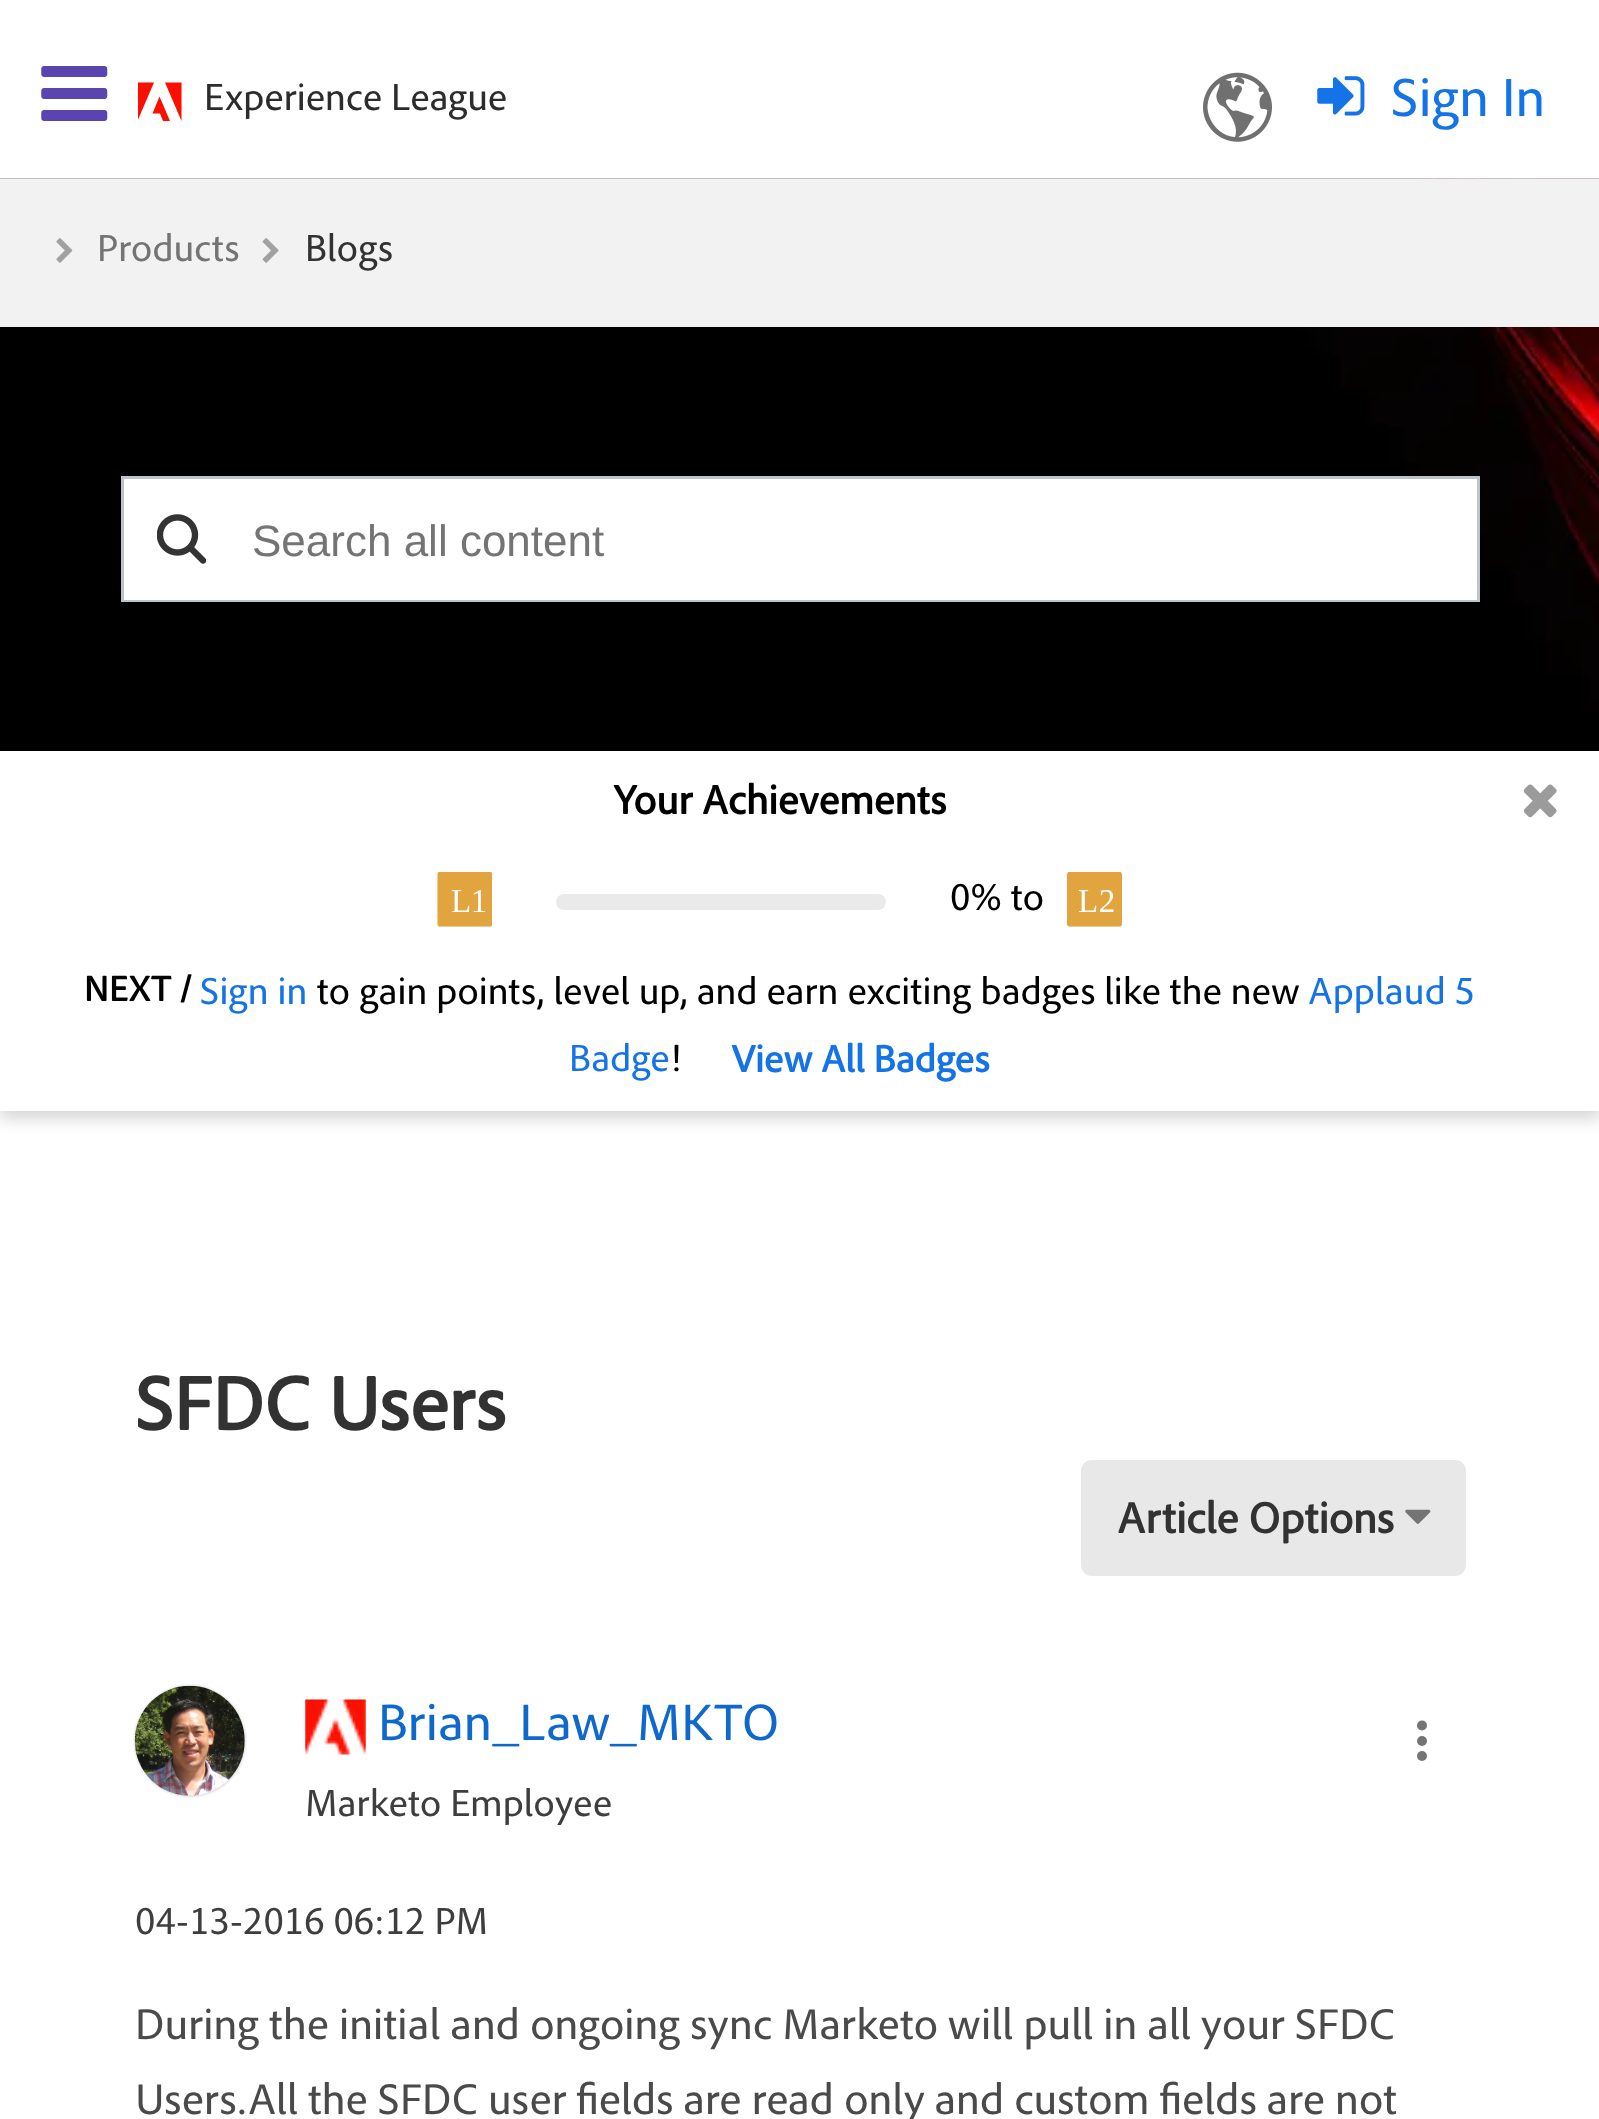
<!DOCTYPE html>
<meta charset="utf-8">
<style>body { margin: 0 } canvas { display: block }</style>
<canvas id="canvas" width="1599" height="2119"></canvas>
<script type="module">
  const canvas = document.getElementById("canvas");
  const ctx = canvas.getContext("2d");
  ctx.miterLimit = 4;
  ctx.fontKerning = "normal";
  async function loadImage(src) {
    const img = new Image();
    img.src = src;
    await img.decode();
    return img;
  }

  ctx.fillStyle = "#ffffff";
  ctx.fillRect(0, 0, 1599, 2119);
  ctx.drawImage(await loadImage("img1.png"), 41, 66, 67, 55);
  ctx.save();
  ctx.beginPath();
  ctx.rect(138, 80, 44, 44);
  ctx.clip();
  ctx.fillStyle = "#fa0f00";
  ctx.beginPath();
  ctx.moveTo(154, 82.5);
  ctx.lineTo(137.5, 82.5);
  ctx.lineTo(137.5, 121);
  ctx.closePath();
  ctx.fill();
  ctx.restore();
  ctx.fillStyle = "#fa0f00";
  ctx.beginPath();
  ctx.moveTo(165, 82.5);
  ctx.lineTo(181.5, 82.5);
  ctx.lineTo(181.5, 121);
  ctx.closePath();
  ctx.fill();
  ctx.beginPath();
  ctx.moveTo(159.5, 96.5);
  ctx.lineTo(170, 121);
  ctx.lineTo(163, 121);
  ctx.lineTo(160, 113.5);
  ctx.lineTo(152.5, 113.5);
  ctx.closePath();
  ctx.fill();
  ctx.font = "38.5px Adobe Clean";
  ctx.fillStyle = "#2c2c2c";
  ctx.fillText("Experience League", 204, 110);
  ctx.drawImage(await loadImage("img2.png"), 1203, 72, 69, 70);
  ctx.drawImage(await loadImage("img3.png"), 1317, 76, 48, 40);
  ctx.font = "55px Adobe Clean";
  ctx.fillStyle = "#1473e6";
  ctx.fillText("Sign In", 1391, 116);
  ctx.drawImage(await loadImage("img4.png"), 0, 178, 1599, 573);
  ctx.fillStyle = "#f2f2f2";
  ctx.fillRect(0, 179, 1599, 148);
  ctx.drawImage(await loadImage("img5.png"), 56, 238, 17, 25);
  ctx.font = "38.5px Adobe Clean";
  ctx.fillStyle = "#747474";
  ctx.fillText("Products", 97, 261);
  ctx.drawImage(await loadImage("img6.png"), 262, 238, 17, 25);
  ctx.fillStyle = "#323232";
  ctx.fillText("Blogs", 305, 261);
  ctx.strokeStyle = "#bcc3ca";
  ctx.lineWidth = 3;
  ctx.strokeRect(122.5, 477.5, 1356, 123);
  ctx.fillStyle = "#ffffff";
  ctx.fillRect(124, 479, 1353, 121);
  ctx.drawImage(await loadImage("img7.png"), 157, 514, 49, 50);
  ctx.font = "44px Liberation Sans";
  ctx.fillStyle = "#747474";
  ctx.fillText("Search all content", 252, 556);
  ctx.fillStyle = "rgba(0, 0, 0, 0.16)";
  ctx.filter = "blur(8px)";
  ctx.beginPath();
  ctx.rect(0, 759, 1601, 360);
  ctx.fill();
  ctx.filter = "none";
  ctx.fillStyle = "#ffffff";
  ctx.fillRect(0, 751, 1599, 360);
  ctx.font = "bold 41.25px Adobe Clean";
  ctx.fillStyle = "#000000";
  ctx.fillText("Your Achievements", 613, 814);
  ctx.drawImage(await loadImage("img8.png"), 1523, 784, 34, 34);
  ctx.drawImage(await loadImage("img9.png"), 437, 872, 55, 55);
  ctx.fillStyle = "#eaeaea";
  ctx.beginPath();
  ctx.roundRect(556, 894, 330, 16, 8);
  ctx.fill();
  ctx.font = "38.5px Adobe Clean";
  ctx.fillStyle = "#000000";
  ctx.fillText("0% to", 950, 910);
  ctx.drawImage(await loadImage("img10.png"), 1067, 872, 55, 55);
  ctx.font = "bold 36px Adobe Clean";
  ctx.fillText("NEXT /", 84, 1001);
  ctx.font = "38.5px Adobe Clean";
  ctx.fillStyle = "#1473e6";
  ctx.fillText("Sign in", 200, 1004);
  ctx.fillStyle = "#000000";
  ctx.fillText("to gain points, level up, and earn exciting badges like the new", 317, 1004);
  ctx.fillStyle = "#1473e6";
  ctx.fillText("Applaud 5", 1308, 1004);
  ctx.fillText("Badge", 569, 1071);
  ctx.fillStyle = "#000000";
  ctx.fillText("!", 670, 1071);
  ctx.font = "bold 38.5px Adobe Clean";
  ctx.fillStyle = "#1473e6";
  ctx.fillText("View All Badges", 731, 1072);
  ctx.font = "bold 77px Adobe Clean";
  ctx.fillStyle = "#323232";
  ctx.fillText("SFDC Users", 135, 1430);
  ctx.fillStyle = "#e8e8e8";
  ctx.beginPath();
  ctx.roundRect(1082.5, 1461.5, 382, 113, 9.5);
  ctx.fill();
  ctx.strokeStyle = "#e8e8e8";
  ctx.stroke();
  ctx.font = "bold 44px Adobe Clean";
  ctx.fillStyle = "#323232";
  ctx.fillText("Article Options", 1117, 1533);
  ctx.drawImage(await loadImage("img11.png"), 1405, 1509, 26, 15);
  ctx.fillStyle = "#c4c4c4";
  ctx.filter = "blur(1.5px)";
  ctx.beginPath();
  ctx.roundRect(135, 1686, 110, 110, 55);
  ctx.fill();
  ctx.filter = "none";
  ctx.drawImage(await loadImage("img12.png"), 134, 1685, 111, 111);
  ctx.drawImage(await loadImage("img13.png"), 305, 1699, 61, 56);
  ctx.font = "52.25px Adobe Clean";
  ctx.fillStyle = "#0f68cb";
  ctx.fillText("Brian_Law_MKTO", 378, 1740);
  ctx.fillStyle = "#747474";
  ctx.beginPath();
  ctx.arc(1422, 1725.5, 5, 0, Math.PI * 2);
  ctx.fill();
  ctx.beginPath();
  ctx.arc(1422, 1741, 5, 0, Math.PI * 2);
  ctx.fill();
  ctx.beginPath();
  ctx.arc(1422, 1756, 5, 0, Math.PI * 2);
  ctx.fill();
  ctx.font = "38.5px Adobe Clean";
  ctx.fillStyle = "#3e3e3e";
  ctx.fillText("Marketo Employee", 305, 1816);
  ctx.fillText("04-13-2016 06:12 PM", 135, 1934);
  ctx.font = "44px Adobe Clean";
  ctx.fillStyle = "#4a4a4a";
  ctx.fillText("During the initial and ongoing sync Marketo will pull in all your SFDC", 135, 2039);
  ctx.fillText("Users.All the SFDC user fields are read only and custom fields are not", 135, 2114);
</script>
